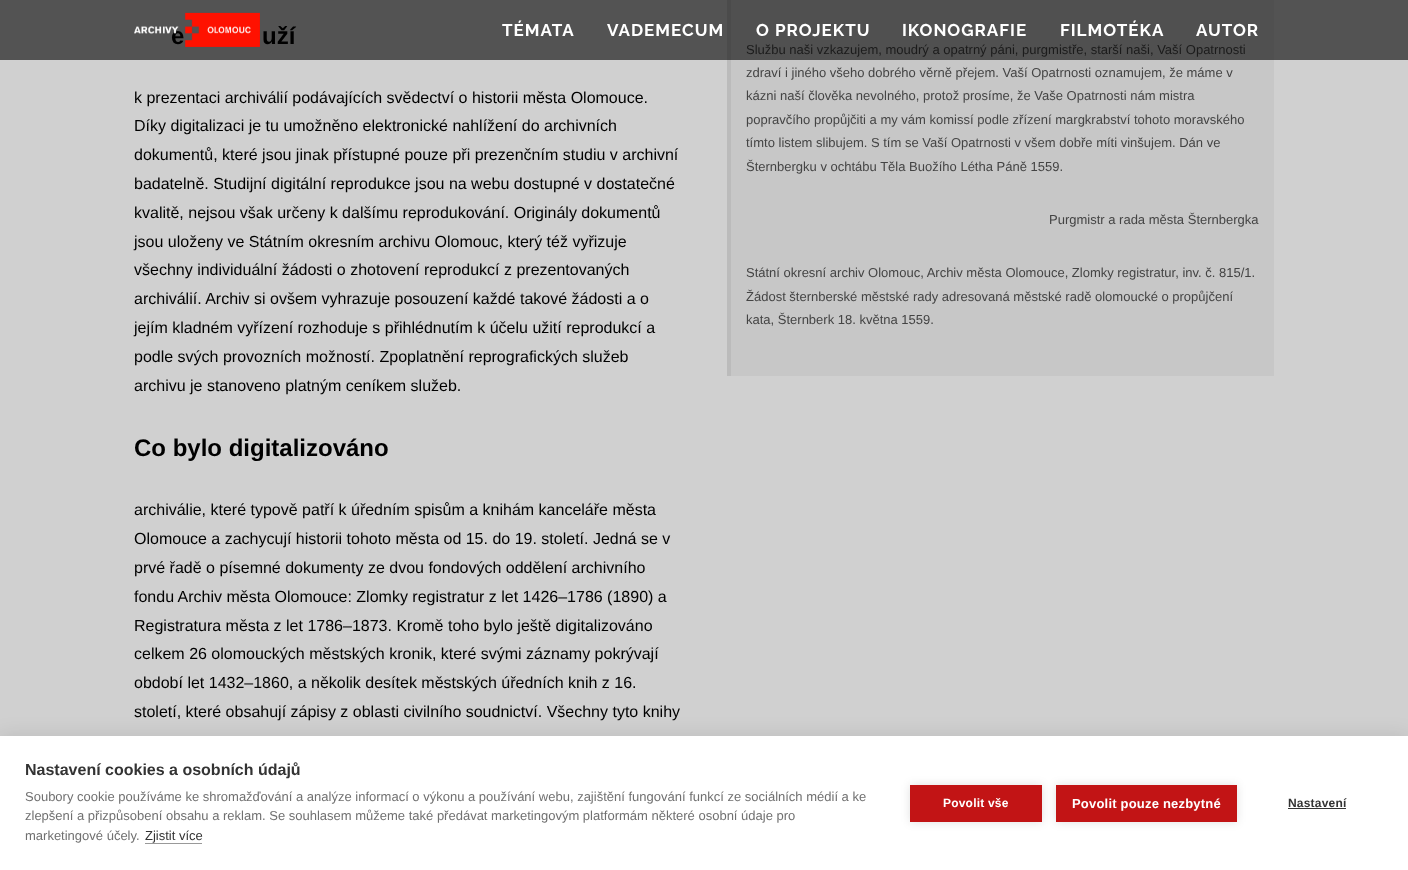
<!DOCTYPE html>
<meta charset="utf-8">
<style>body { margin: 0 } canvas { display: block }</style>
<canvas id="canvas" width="1408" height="870"></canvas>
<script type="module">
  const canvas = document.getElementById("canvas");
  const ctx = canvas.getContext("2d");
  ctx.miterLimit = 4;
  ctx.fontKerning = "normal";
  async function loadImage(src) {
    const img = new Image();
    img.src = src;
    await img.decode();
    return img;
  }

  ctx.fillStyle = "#d0d0d0";
  ctx.fillRect(0, 0, 1408, 870);
  ctx.fillStyle = "#535353";
  ctx.fillRect(0, 0, 1408, 60);
  ctx.font = "bold 24px Liberation Sans";
  ctx.fillStyle = "#000000";
  ctx.fillText("e", 171, 44);
  ctx.drawImage(await loadImage("img1.png"), 134, 12, 126, 35);
  ctx.letterSpacing = "1px";
  ctx.font = "bold 17px Raleway";
  ctx.fillStyle = "#ffffff";
  ctx.fillText("TÉMATA", 502, 36);
  ctx.fillText("VADEMECUM", 607, 36);
  ctx.fillStyle = "#505050";
  ctx.fillRect(731, 0, 543, 60);
  ctx.fillStyle = "#ffffff";
  ctx.fillText("O PROJEKTU", 756, 36);
  ctx.fillText("IKONOGRAFIE", 902, 36);
  ctx.fillText("FILMOTÉKA", 1060, 36);
  ctx.fillText("AUTOR", 1196, 36);
  ctx.letterSpacing = "0px";
  ctx.font = "bold 24px Liberation Sans";
  ctx.fillStyle = "#000000";
  ctx.fillText("uží", 262, 44);
  ctx.font = "16px Liberation Sans";
  ctx.fillText("k prezentaci archiválií podávajících svědectví o historii města Olomouce.", 134, 103);
  ctx.fillText("Díky digitalizaci je tu umožněno elektronické nahlížení do archivních", 134, 131);
  ctx.fillText("dokumentů, které jsou jinak přístupné pouze při prezenčním studiu v archivní", 134, 160);
  ctx.fillText("badatelně. Studijní digitální reprodukce jsou na webu dostupné v dostatečné", 134, 189);
  ctx.fillText("kvalitě, nejsou však určeny k dalšímu reprodukování. Originály dokumentů", 134, 218);
  ctx.fillText("jsou uloženy ve Státním okresním archivu Olomouc, který též vyřizuje", 134, 247);
  ctx.fillText("všechny individuální žádosti o zhotovení reprodukcí z prezentovaných", 134, 275);
  ctx.fillText("archiválií. Archiv si ovšem vyhrazuje posouzení každé takové žádosti a o", 134, 304);
  ctx.fillText("jejím kladném vyřízení rozhoduje s přihlédnutím k účelu užití reprodukcí a", 134, 333);
  ctx.fillText("podle svých provozních možností. Zpoplatnění reprografických služeb", 134, 362);
  ctx.fillText("archivu je stanoveno platným ceníkem služeb.", 134, 391);
  ctx.font = "bold 24px Liberation Sans";
  ctx.fillText("Co bylo digitalizováno", 134, 456);
  ctx.font = "16px Liberation Sans";
  ctx.fillText("archiválie, které typově patří k úředním spisům a knihám kanceláře města", 134, 515);
  ctx.fillText("Olomouce a zachycují historii tohoto města od 15. do 19. století. Jedná se v", 134, 544);
  ctx.fillText("prvé řadě o písemné dokumenty ze dvou fondových oddělení archivního", 134, 573);
  ctx.fillText("fondu Archiv města Olomouce: Zlomky registratur z let 1426–1786 (1890) a", 134, 602);
  ctx.fillText("Registratura města z let 1786–1873. Kromě toho bylo ještě digitalizováno", 134, 631);
  ctx.fillText("celkem 26 olomouckých městských kronik, které svými záznamy pokrývají", 134, 659);
  ctx.fillText("období let 1432–1860, a několik desítek městských úředních knih z 16.", 134, 688);
  ctx.fillText("století, které obsahují zápisy z oblasti civilního soudnictví. Všechny tyto knihy", 134, 717);
  ctx.fillStyle = "#bbbbbb";
  ctx.fillRect(727, 60, 4, 316);
  ctx.fillStyle = "#4b4b4b";
  ctx.fillRect(727, 0, 4, 60);
  ctx.fillStyle = "#c7c7c7";
  ctx.fillRect(731, 60, 543, 316);
  ctx.font = "13px Liberation Sans";
  ctx.fillStyle = "#1b1b1b";
  ctx.fillText("Službu naši vzkazujem, moudrý a opatrný páni, purgmistře, starší naši, Vaší Opatrnosti", 746, 54);
  ctx.fillStyle = "#444444";
  ctx.fillText("zdraví i jiného všeho dobrého věrně přejem. Vaší Opatrnosti oznamujem, že máme v", 746, 77);
  ctx.fillText("kázni naší člověka nevolného, protož prosíme, že Vaše Opatrnosti nám mistra", 746, 100);
  ctx.fillText("popravčího propůjčiti a my vám komissí podle zřízení margkrabství tohoto moravského", 746, 124);
  ctx.fillText("tímto listem slibujem. S tím se Vaší Opatrnosti v všem dobře míti vinšujem. Dán ve", 746, 147);
  ctx.fillText("Šternbergku v ochtábu Těla Buožího Létha Páně 1559.", 746, 171);
  ctx.fillText("Purgmistr a rada města Šternbergka", 1049, 224);
  ctx.fillText("Státní okresní archiv Olomouc, Archiv města Olomouce, Zlomky registratur, inv. č. 815/1.", 746, 277);
  ctx.fillText("Žádost šternberské městské rady adresovaná městské radě olomoucké o propůjčení", 746, 301);
  ctx.fillText("kata, Šternberk 18. května 1559.", 746, 324);
  ctx.fillStyle = "rgba(0, 0, 0, 0.1)";
  ctx.filter = "blur(10px)";
  ctx.beginPath();
  ctx.rect(0, 736, 1408, 134);
  ctx.fill();
  ctx.filter = "none";
  ctx.fillStyle = "#ffffff";
  ctx.fillRect(0, 736, 1408, 134);
  ctx.font = "bold 16px Liberation Sans";
  ctx.fillStyle = "#333333";
  ctx.fillText("Nastavení cookies a osobních údajů", 25, 775);
  ctx.font = "13px Liberation Sans";
  ctx.fillStyle = "#707070";
  ctx.fillText("Soubory cookie používáme ke shromažďování a analýze informací o výkonu a používání webu, zajištění fungování funkcí ze sociálních médií a ke", 25, 801);
  ctx.fillText("zlepšení a přizpůsobení obsahu a reklam. Se souhlasem můžeme také předávat marketingovým platformám některé osobní údaje pro", 25, 820);
  ctx.fillText("marketingové účely.", 25, 840);
  ctx.fillStyle = "#333333";
  ctx.fillText("Zjistit více", 145, 840);
  ctx.fillStyle = "#999999";
  ctx.fillRect(145, 843, 57, 1);
  ctx.fillStyle = "rgba(0, 0, 0, 0.12)";
  ctx.filter = "blur(5px)";
  ctx.beginPath();
  ctx.rect(910, 785, 132, 37);
  ctx.fill();
  ctx.filter = "none";
  ctx.fillStyle = "#c21415";
  ctx.fillRect(910, 785, 132, 37);
  ctx.letterSpacing = "0.2px";
  ctx.font = "bold 12px Liberation Sans";
  ctx.fillStyle = "#ffffff";
  ctx.fillText("Povolit vše", 943, 807);
  ctx.fillStyle = "rgba(0, 0, 0, 0.12)";
  ctx.filter = "blur(5px)";
  ctx.beginPath();
  ctx.rect(1056, 785, 181, 37);
  ctx.fill();
  ctx.filter = "none";
  ctx.fillStyle = "#c21415";
  ctx.fillRect(1056, 785, 181, 37);
  ctx.font = "bold 13px Liberation Sans";
  ctx.fillStyle = "#ffffff";
  ctx.fillText("Povolit pouze nezbytné", 1072, 808);
  ctx.font = "bold 12px Liberation Sans";
  ctx.fillStyle = "#333333";
  ctx.fillText("Nastavení", 1288, 807);
  ctx.fillRect(1288, 808, 58, 1);
</script>
